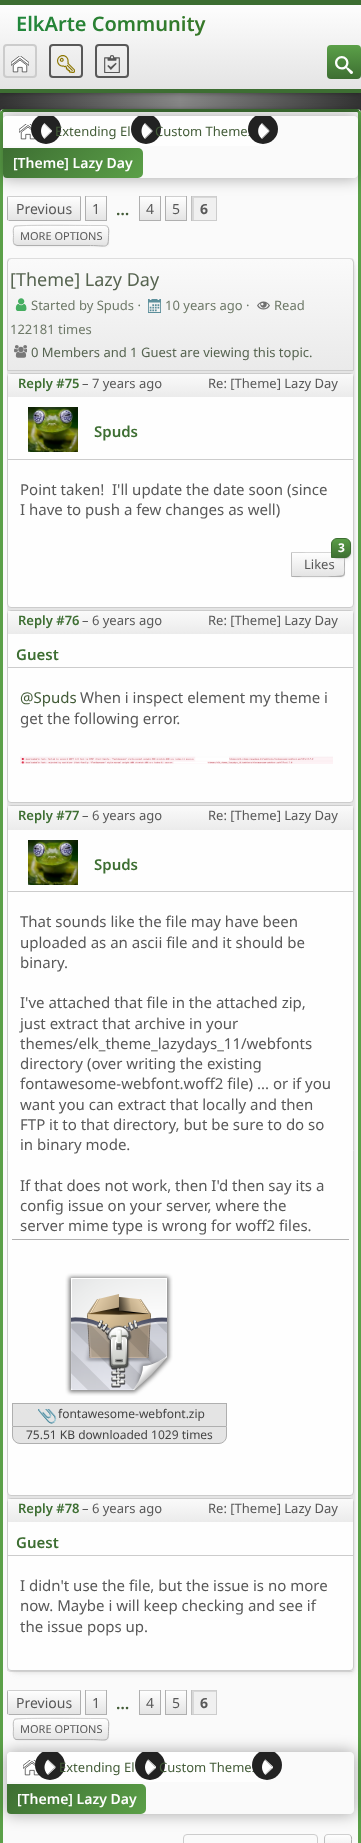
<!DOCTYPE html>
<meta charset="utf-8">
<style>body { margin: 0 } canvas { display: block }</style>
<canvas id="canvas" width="361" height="1843"></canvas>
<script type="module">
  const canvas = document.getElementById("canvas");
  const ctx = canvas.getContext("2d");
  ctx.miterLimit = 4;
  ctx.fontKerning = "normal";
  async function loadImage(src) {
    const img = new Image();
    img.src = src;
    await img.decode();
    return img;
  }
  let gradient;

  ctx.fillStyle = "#ffffff";
  ctx.fillRect(0, 0, 361, 1843);
  gradient = ctx.createLinearGradient(0, 985, 361, 985);
  gradient.addColorStop(0, "#333333");
  gradient.addColorStop(0.5, "#888888");
  gradient.addColorStop(1, "#333333");
  ctx.fillStyle = gradient;
  ctx.fillRect(0, 93, 361, 20);
  ctx.fillStyle = "rgba(0, 0, 0, 0.3)";
  ctx.filter = "blur(2px)";
  ctx.beginPath();
  ctx.rect(0, 1, 361, 93);
  ctx.fill();
  ctx.filter = "none";
  gradient = ctx.createLinearGradient(181, 4, 181, 89);
  gradient.addColorStop(0, "#fefefe");
  gradient.addColorStop(1, "#e4e4e4");
  ctx.fillStyle = gradient;
  ctx.fillRect(0, 5, 361, 84);
  ctx.fillStyle = "#3d6e32";
  ctx.fillRect(0, 0, 361, 5);
  ctx.fillRect(0, 89, 361, 4);
  ctx.font = "600 20px Noto Sans";
  gradient = ctx.createLinearGradient(16, 15, 206, 32);
  gradient.addColorStop(0, "#21873c");
  gradient.addColorStop(1, "#377828");
  ctx.fillStyle = gradient;
  ctx.fillText("ElkArte Community", 16, 31);
  ctx.beginPath();
  ctx.roundRect(4, 45, 32, 32, 3);
  ctx.strokeStyle = "#cccccc";
  ctx.lineWidth = 2;
  ctx.stroke();
  ctx.drawImage(await loadImage("img1.png"), 11, 56, 18, 17);
  ctx.beginPath();
  ctx.roundRect(50, 45, 32, 32, 3);
  ctx.strokeStyle = "#585858";
  ctx.stroke();
  ctx.drawImage(await loadImage("img2.png"), 57, 55, 18, 18);
  ctx.beginPath();
  ctx.roundRect(96, 45, 32, 32, 3);
  ctx.stroke();
  ctx.drawImage(await loadImage("img3.png"), 104, 55, 16, 18);
  gradient = ctx.createLinearGradient(344, 45, 344, 79);
  gradient.addColorStop(0, "#5ba048");
  gradient.addColorStop(1, "#3d6e32");
  ctx.fillStyle = gradient;
  ctx.beginPath();
  ctx.roundRect(327, 45, 34, 34, 4);
  ctx.fill();
  ctx.drawImage(await loadImage("img4.png"), 335, 56, 18, 18);
  ctx.fillStyle = "#222222";
  ctx.filter = "blur(2px)";
  ctx.beginPath();
  ctx.roundRect(0, 111, 361, 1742, 4);
  ctx.fill();
  ctx.filter = "none";
  ctx.fillStyle = "#fafafa";
  ctx.beginPath();
  ctx.roundRect(0, 109, 361, 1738, 4);
  ctx.fill();
  ctx.beginPath();
  ctx.moveTo(2, 111);
  ctx.lineTo(4, 110.5);
  ctx.lineTo(357, 110.5);
  ctx.lineTo(359, 111);
  ctx.strokeStyle = "#3d6e32";
  ctx.lineWidth = 3;
  ctx.stroke();
  ctx.beginPath();
  ctx.moveTo(359, 111);
  ctx.lineTo(359.5, 113);
  ctx.lineTo(359.5, 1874);
  ctx.lineTo(359, 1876);
  ctx.strokeStyle = "#5ba048";
  ctx.stroke();
  ctx.beginPath();
  ctx.moveTo(2, 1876);
  ctx.lineTo(1.5, 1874);
  ctx.lineTo(1.5, 113);
  ctx.lineTo(2, 111);
  ctx.stroke();
  gradient = ctx.createLinearGradient(44, 174, 44, 197);
  gradient.addColorStop(0, "#fefefe");
  gradient.addColorStop(1, "#e4e4e4");
  ctx.fillStyle = gradient;
  ctx.fillRect(7, 196, 74, 1);
  gradient = ctx.createLinearGradient(44, 197, 44, 220);
  gradient.addColorStop(0, "#fefefe");
  gradient.addColorStop(1, "#e4e4e4");
  ctx.fillStyle = gradient;
  ctx.fillRect(7, 197, 73, 23);
  ctx.fillStyle = "#cfcfcf";
  ctx.beginPath();
  ctx.moveTo(9, 196);
  ctx.lineTo(8, 197);
  ctx.lineTo(80, 197);
  ctx.lineTo(81, 196);
  ctx.closePath();
  ctx.fill();
  gradient = ctx.createLinearGradient(44, 220, 44, 243);
  gradient.addColorStop(0, "#fefefe");
  gradient.addColorStop(1, "#e4e4e4");
  ctx.fillStyle = gradient;
  ctx.fillRect(7, 220, 74, 1);
  ctx.fillStyle = "#afafaf";
  ctx.beginPath();
  ctx.moveTo(81, 196);
  ctx.lineTo(80, 197);
  ctx.lineTo(80, 220);
  ctx.lineTo(81, 221);
  ctx.closePath();
  ctx.fill();
  ctx.beginPath();
  ctx.moveTo(7, 198);
  ctx.lineTo(7, 219);
  ctx.bezierCurveTo(7, 219.5, 7, 220, 7.5, 220.5);
  ctx.lineTo(8, 220);
  ctx.lineTo(8, 197);
  ctx.lineTo(7.5, 196.5);
  ctx.closePath();
  ctx.fill();
  gradient = ctx.createLinearGradient(96, 197, 96, 220);
  gradient.addColorStop(0, "#fefefe");
  gradient.addColorStop(1, "#e4e4e4");
  ctx.fillStyle = gradient;
  ctx.fillRect(86, 197, 20, 23);
  ctx.fillStyle = "#cfcfcf";
  ctx.fillRect(85, 196, 22, 1);
  ctx.fillStyle = "#afafaf";
  ctx.fillRect(106, 196, 1, 25);
  ctx.fillRect(85, 220, 22, 1);
  ctx.fillRect(85, 196, 1, 25);
  gradient = ctx.createLinearGradient(150, 197, 150, 220);
  gradient.addColorStop(0, "#fefefe");
  gradient.addColorStop(1, "#e4e4e4");
  ctx.fillStyle = gradient;
  ctx.fillRect(140, 197, 20, 23);
  ctx.fillStyle = "#cfcfcf";
  ctx.fillRect(139, 196, 22, 1);
  ctx.fillStyle = "#afafaf";
  ctx.fillRect(160, 196, 1, 25);
  ctx.fillRect(139, 220, 22, 1);
  ctx.fillRect(139, 196, 1, 25);
  gradient = ctx.createLinearGradient(176, 197, 176, 220);
  gradient.addColorStop(0, "#fefefe");
  gradient.addColorStop(1, "#e4e4e4");
  ctx.fillStyle = gradient;
  ctx.fillRect(166, 197, 20, 23);
  ctx.fillStyle = "#cfcfcf";
  ctx.fillRect(165, 196, 22, 1);
  ctx.fillStyle = "#afafaf";
  ctx.fillRect(186, 196, 1, 25);
  ctx.fillRect(165, 220, 22, 1);
  ctx.fillRect(165, 196, 1, 25);
  ctx.fillStyle = "#f0f0f0";
  ctx.fillRect(194, 198, 22, 22);
  ctx.save();
  ctx.beginPath();
  ctx.rect(192, 197, 24, 23);
  ctx.clip();
  ctx.fillStyle = "#d8d8d8";
  ctx.beginPath();
  ctx.moveTo(93, 98);
  ctx.lineTo(315, 98);
  ctx.lineTo(315, 319);
  ctx.lineTo(93, 319);
  ctx.closePath();
  ctx.moveTo(194, 198);
  ctx.lineTo(218, 198);
  ctx.lineTo(218, 221);
  ctx.lineTo(194, 221);
  ctx.closePath();
  ctx.fill("evenodd");
  ctx.restore();
  ctx.fillStyle = "#cfcfcf";
  ctx.fillRect(191, 196, 26, 1);
  ctx.fillStyle = "#cccccc";
  ctx.fillRect(216, 196, 1, 25);
  ctx.fillRect(191, 220, 26, 1);
  ctx.fillStyle = "#bfbfbf";
  ctx.fillRect(191, 196, 1, 25);
  ctx.save();
  ctx.beginPath();
  ctx.moveTo(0, 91);
  ctx.lineTo(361, 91);
  ctx.lineTo(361, 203);
  ctx.lineTo(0, 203);
  ctx.closePath();
  ctx.moveTo(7, 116);
  ctx.lineTo(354, 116);
  ctx.bezierCurveTo(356, 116, 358, 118, 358, 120);
  ctx.lineTo(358, 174);
  ctx.bezierCurveTo(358, 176, 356, 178, 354, 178);
  ctx.lineTo(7, 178);
  ctx.bezierCurveTo(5, 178, 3, 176, 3, 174);
  ctx.lineTo(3, 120);
  ctx.bezierCurveTo(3, 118, 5, 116, 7, 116);
  ctx.closePath();
  ctx.clip("evenodd");
  ctx.fillStyle = "rgba(0, 0, 0, 0.3)";
  ctx.filter = "blur(7.5px)";
  ctx.beginPath();
  ctx.roundRect(2, 115, 357, 64, 5);
  ctx.fill();
  ctx.filter = "none";
  ctx.restore();
  ctx.fillStyle = "#fefefe";
  ctx.beginPath();
  ctx.roundRect(3, 116, 42, 30, [4, 0, 0, 4]);
  ctx.fill();
  ctx.drawImage(await loadImage("img5.png"), 19, 124, 18, 16);
  ctx.fillRect(45, 116, 217, 30);
  ctx.save();
  ctx.beginPath();
  ctx.roundRect(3, 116, 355, 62, 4);
  ctx.clip();
  ctx.fillStyle = "#222222";
  ctx.filter = "blur(0.5px)";
  ctx.beginPath();
  ctx.roundRect(31, 114, 30, 30, 30);
  ctx.fill();
  ctx.filter = "none";
  ctx.restore();
  ctx.fillStyle = "#e4e4e4";
  ctx.beginPath();
  ctx.moveTo(44.5, 123);
  ctx.lineTo(52, 130.5);
  ctx.lineTo(52, 131.5);
  ctx.lineTo(44.5, 139);
  ctx.lineTo(43.5, 138);
  ctx.lineTo(44, 138.5);
  ctx.lineTo(51, 131.5);
  ctx.lineTo(51, 130.5);
  ctx.lineTo(44, 123.5);
  ctx.lineTo(42, 126);
  ctx.lineTo(44, 123.5);
  ctx.closePath();
  ctx.fill();
  ctx.fillStyle = "#fefefe";
  ctx.beginPath();
  ctx.moveTo(44, 123.5);
  ctx.lineTo(51, 130.5);
  ctx.lineTo(51, 131.5);
  ctx.lineTo(44, 138.5);
  ctx.bezierCurveTo(40, 134.5, 40, 127.5, 44, 123.5);
  ctx.closePath();
  ctx.fill();
  ctx.font = "13px Noto Sans";
  ctx.fillStyle = "#435c38";
  ctx.fillText("Extending El", 55, 136);
  ctx.save();
  ctx.beginPath();
  ctx.roundRect(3, 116, 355, 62, 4);
  ctx.clip();
  ctx.fillStyle = "#222222";
  ctx.filter = "blur(0.5px)";
  ctx.beginPath();
  ctx.roundRect(131, 114, 30, 30, 30);
  ctx.fill();
  ctx.filter = "none";
  ctx.restore();
  ctx.fillStyle = "#e4e4e4";
  ctx.beginPath();
  ctx.moveTo(145, 123);
  ctx.lineTo(152.5, 130.5);
  ctx.lineTo(152.5, 131.5);
  ctx.lineTo(145, 139);
  ctx.lineTo(144.5, 138.5);
  ctx.lineTo(151.5, 131.5);
  ctx.lineTo(151.5, 130.5);
  ctx.lineTo(144.5, 123.5);
  ctx.lineTo(143.5, 124.5);
  ctx.lineTo(144.5, 123.5);
  ctx.closePath();
  ctx.fill();
  ctx.fillStyle = "#fefefe";
  ctx.beginPath();
  ctx.moveTo(144.5, 123.5);
  ctx.lineTo(151.5, 130.5);
  ctx.lineTo(151.5, 131.5);
  ctx.lineTo(144.5, 138.5);
  ctx.bezierCurveTo(140.5, 134.5, 140.5, 127.5, 144.5, 123.5);
  ctx.closePath();
  ctx.fill();
  ctx.fillStyle = "#435c38";
  ctx.fillText("Custom Themes", 155, 136);
  ctx.save();
  ctx.beginPath();
  ctx.roundRect(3, 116, 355, 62, 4);
  ctx.clip();
  ctx.fillStyle = "#222222";
  ctx.filter = "blur(0.5px)";
  ctx.beginPath();
  ctx.roundRect(248, 114, 30, 30, 30);
  ctx.fill();
  ctx.filter = "none";
  ctx.restore();
  ctx.fillStyle = "#e4e4e4";
  ctx.beginPath();
  ctx.moveTo(262, 123);
  ctx.lineTo(268, 129);
  ctx.bezierCurveTo(270, 131.5, 270, 130.5, 268, 133);
  ctx.lineTo(262, 139);
  ctx.lineTo(261.5, 138.5);
  ctx.lineTo(268.5, 131.5);
  ctx.lineTo(268.5, 130.5);
  ctx.lineTo(261.5, 123.5);
  ctx.closePath();
  ctx.moveTo(260.5, 124.5);
  ctx.lineTo(258.5, 128);
  ctx.closePath();
  ctx.fill("evenodd");
  ctx.fillStyle = "#fefefe";
  ctx.beginPath();
  ctx.moveTo(261.5, 123.5);
  ctx.lineTo(268.5, 130.5);
  ctx.lineTo(268.5, 131.5);
  ctx.lineTo(261.5, 138.5);
  ctx.bezierCurveTo(257, 134.5, 257, 127.5, 261.5, 123.5);
  ctx.closePath();
  ctx.fill();
  gradient = ctx.createLinearGradient(30, 121, 116, 206);
  gradient.addColorStop(0, "#3d6e32");
  gradient.addColorStop(1, "#5ba048");
  ctx.fillStyle = gradient;
  ctx.beginPath();
  ctx.roundRect(3, 148, 140, 30, [0, 5, 5, 4]);
  ctx.fill();
  ctx.font = "600 14px Noto Sans";
  ctx.fillStyle = "#fefefe";
  ctx.fillText("[Theme] Lazy Day", 13, 168);
  ctx.font = "14px Noto Sans";
  ctx.fillStyle = "#585858";
  ctx.fillText("Previous", 16, 214);
  ctx.fillStyle = "#afafaf";
  ctx.beginPath();
  ctx.moveTo(81, 221);
  ctx.lineTo(80, 220);
  ctx.lineTo(8, 220);
  ctx.lineTo(9, 221);
  ctx.closePath();
  ctx.fill();
  ctx.fillStyle = "#585858";
  ctx.fillText("1", 92, 214);
  ctx.font = "600 16px Noto Sans";
  ctx.fillStyle = "#435c38";
  ctx.fillText("…", 116, 215);
  ctx.font = "14px Noto Sans";
  ctx.fillStyle = "#585858";
  ctx.fillText("4", 146, 214);
  ctx.fillText("5", 172, 214);
  ctx.font = "bold 14px Noto Sans";
  ctx.fillText("6", 200, 214);
  ctx.fillStyle = "rgba(179, 179, 179, 0.33)";
  ctx.filter = "blur(1px)";
  ctx.beginPath();
  ctx.roundRect(16, 229, 92, 17, 2);
  ctx.fill();
  ctx.filter = "none";
  ctx.fillStyle = "rgba(179, 179, 179, 0.29)";
  ctx.filter = "blur(0.5px)";
  ctx.beginPath();
  ctx.roundRect(14, 227, 94, 19, 3);
  ctx.fill();
  ctx.filter = "none";
  ctx.fillStyle = "rgba(179, 179, 179, 0.25)";
  ctx.filter = "blur(0.5px)";
  ctx.beginPath();
  ctx.roundRect(13, 225, 96, 21, 4);
  ctx.fill();
  ctx.filter = "none";
  ctx.save();
  ctx.beginPath();
  ctx.roundRect(13, 225, 96, 21, 4);
  ctx.clip();
  gradient = ctx.createLinearGradient(61, 207, 61, 226);
  gradient.addColorStop(0, "#fefefe");
  gradient.addColorStop(1, "#e4e4e4");
  ctx.fillStyle = gradient;
  ctx.fillRect(13, 225, 96, 1);
  gradient = ctx.createLinearGradient(61, 226, 61, 245);
  gradient.addColorStop(0, "#fefefe");
  gradient.addColorStop(1, "#e4e4e4");
  ctx.fillStyle = gradient;
  ctx.fillRect(13, 226, 96, 19);
  gradient = ctx.createLinearGradient(61, 245, 61, 264);
  gradient.addColorStop(0, "#fefefe");
  gradient.addColorStop(1, "#e4e4e4");
  ctx.fillStyle = gradient;
  ctx.fillRect(13, 245, 96, 1);
  ctx.restore();
  ctx.fillStyle = "#e4e4e4";
  ctx.beginPath();
  ctx.moveTo(14, 241);
  ctx.bezierCurveTo(14, 249, 28, 245, 32, 245);
  ctx.lineTo(90, 245);
  ctx.bezierCurveTo(94, 245, 108, 249, 108, 241);
  ctx.bezierCurveTo(108, 243, 107, 244, 105, 244);
  ctx.lineTo(17, 244);
  ctx.bezierCurveTo(15, 244, 14, 243, 14, 241);
  ctx.closePath();
  ctx.fill();
  ctx.beginPath();
  ctx.moveTo(14.5, 226.5);
  ctx.lineTo(15, 226.5);
  ctx.bezierCurveTo(17, 224.5, 82, 225.5, 90.5, 225.5);
  ctx.lineTo(105, 225.5);
  ctx.lineTo(107.5, 226.5);
  ctx.strokeStyle = "#cfcfcf";
  ctx.lineWidth = 1;
  ctx.stroke();
  ctx.beginPath();
  ctx.moveTo(107.5, 226.5);
  ctx.bezierCurveTo(109.5, 228.5, 108.5, 233, 108.5, 235.5);
  ctx.bezierCurveTo(108.5, 249.5, 107, 245.5, 90.5, 245.5);
  ctx.lineTo(17, 245.5);
  ctx.lineTo(14.5, 244.5);
  ctx.strokeStyle = "#afafaf";
  ctx.stroke();
  ctx.beginPath();
  ctx.moveTo(14.5, 244.5);
  ctx.bezierCurveTo(12.5, 242.5, 13.5, 238, 13.5, 235.5);
  ctx.bezierCurveTo(13.5, 233, 12.5, 228.5, 14.5, 226.5);
  ctx.strokeStyle = "#bfbfbf";
  ctx.stroke();
  ctx.font = "11px Noto Sans";
  ctx.fillStyle = "#585858";
  ctx.fillText("MORE OPTIONS", 20, 240);
  ctx.fillStyle = "rgba(179, 179, 179, 0.15)";
  ctx.filter = "blur(3.5px)";
  ctx.beginPath();
  ctx.roundRect(14, 267, 340, 1406, 0.5);
  ctx.fill();
  ctx.filter = "none";
  ctx.fillStyle = "rgba(179, 179, 179, 0.27)";
  ctx.filter = "blur(2px)";
  ctx.beginPath();
  ctx.roundRect(12, 264, 342, 1408, 1.5);
  ctx.fill();
  ctx.filter = "none";
  ctx.fillStyle = "rgba(179, 179, 179, 0.32)";
  ctx.filter = "blur(1px)";
  ctx.beginPath();
  ctx.roundRect(9, 260, 345, 1411, 3);
  ctx.fill();
  ctx.filter = "none";
  ctx.fillStyle = "rgba(179, 179, 179, 0.38)";
  ctx.filter = "blur(0.5px)";
  ctx.beginPath();
  ctx.roundRect(7, 259, 347, 1413, 4);
  ctx.fill();
  ctx.filter = "none";
  ctx.fillStyle = "#e4e4e4";
  ctx.beginPath();
  ctx.roundRect(7, 258, 347, 1413, [4, 4, 0, 0]);
  ctx.fill();
  ctx.save();
  ctx.beginPath();
  ctx.roundRect(7, 258, 347, 113, [4, 4, 0, 0]);
  ctx.clip();
  gradient = ctx.createLinearGradient(181, 148, 181, 259);
  gradient.addColorStop(0, "#fafafa");
  gradient.addColorStop(1, "#eaeaea");
  ctx.fillStyle = gradient;
  ctx.fillRect(7, 258, 347, 1);
  gradient = ctx.createLinearGradient(181, 259, 181, 370);
  gradient.addColorStop(0, "#fafafa");
  gradient.addColorStop(1, "#eaeaea");
  ctx.fillStyle = gradient;
  ctx.fillRect(7, 259, 347, 111);
  ctx.restore();
  ctx.fillStyle = "#dddddd";
  ctx.beginPath();
  ctx.moveTo(11, 258);
  ctx.lineTo(8, 259);
  ctx.lineTo(9, 260);
  ctx.lineTo(11, 259);
  ctx.lineTo(350, 259);
  ctx.lineTo(352, 260);
  ctx.lineTo(353, 259);
  ctx.lineTo(350, 258);
  ctx.closePath();
  ctx.fill();
  ctx.fillStyle = "#cccccc";
  ctx.beginPath();
  ctx.moveTo(354, 371);
  ctx.lineTo(354, 262);
  ctx.lineTo(353, 259);
  ctx.lineTo(352, 260);
  ctx.lineTo(353, 262);
  ctx.lineTo(353, 370);
  ctx.closePath();
  ctx.fill();
  ctx.beginPath();
  ctx.moveTo(354, 371);
  ctx.lineTo(353, 370);
  ctx.lineTo(8, 370);
  ctx.lineTo(7, 371);
  ctx.closePath();
  ctx.fill();
  ctx.beginPath();
  ctx.moveTo(7, 371);
  ctx.lineTo(8, 370);
  ctx.lineTo(8, 262);
  ctx.lineTo(9, 260);
  ctx.lineTo(8, 259);
  ctx.lineTo(7, 262);
  ctx.closePath();
  ctx.fill();
  ctx.font = "18px Noto Sans";
  ctx.fillStyle = "#566450";
  ctx.fillText("[Theme] Lazy Day", 10, 286);
  ctx.drawImage(await loadImage("img6.png"), 15, 298, 12, 13);
  ctx.font = "13px Noto Sans";
  ctx.fillStyle = "#6e7968";
  ctx.fillText("Started by Spuds ·", 31, 310);
  ctx.drawImage(await loadImage("img7.png"), 148, 299, 13, 14);
  ctx.fillText("10 years ago ·", 165, 310);
  ctx.drawImage(await loadImage("img8.png"), 257, 301, 13, 9);
  ctx.fillText("Read", 274, 310);
  ctx.fillText("122181 times", 10, 334);
  ctx.drawImage(await loadImage("img9.png"), 14, 345, 13, 13);
  ctx.fillStyle = "#566450";
  ctx.fillText("0 Members and 1 Guest are viewing this topic.", 31, 357);
  ctx.fillStyle = "#fefefe";
  ctx.beginPath();
  ctx.roundRect(7.5, 373.5, 346, 234, 3.5);
  ctx.fill();
  ctx.strokeStyle = "#cccccc";
  ctx.stroke();
  gradient = ctx.createLinearGradient(181, 374, 181, 397);
  gradient.addColorStop(0, "#fafafa");
  gradient.addColorStop(1, "#ebebeb");
  ctx.fillStyle = gradient;
  ctx.fillRect(8, 374, 345, 23);
  ctx.font = "600 13px Noto Sans";
  ctx.fillStyle = "#3d6e32";
  ctx.fillText("Reply #75", 18, 388);
  ctx.font = "13px Noto Sans";
  ctx.fillStyle = "#585858";
  ctx.fillText("– 7 years ago", 82, 388);
  ctx.fillText("Re: [Theme] Lazy Day", 208, 388);
  ctx.fillStyle = "#cccccc";
  ctx.fillRect(8, 459, 345, 1);
  ctx.drawImage(await loadImage("img10.png"), 28, 407, 50, 45);
  ctx.font = "600 15px Noto Sans";
  ctx.fillStyle = "#3d6e32";
  ctx.fillText("Spuds", 94, 437);
  ctx.font = "15px Noto Sans";
  ctx.fillStyle = "#585858";
  ctx.fillText("Point taken!  I'll update the date soon (since", 20, 495);
  ctx.fillText("I have to push a few changes as well)", 20, 515);
  ctx.fillStyle = "rgba(179, 179, 179, 0.33)";
  ctx.filter = "blur(1px)";
  ctx.beginPath();
  ctx.roundRect(294, 556, 50, 21, 2);
  ctx.fill();
  ctx.filter = "none";
  ctx.fillStyle = "rgba(179, 179, 179, 0.29)";
  ctx.filter = "blur(0.5px)";
  ctx.beginPath();
  ctx.roundRect(292, 554, 52, 23, 3);
  ctx.fill();
  ctx.filter = "none";
  ctx.fillStyle = "rgba(179, 179, 179, 0.25)";
  ctx.filter = "blur(0.5px)";
  ctx.beginPath();
  ctx.roundRect(291, 552, 54, 25, 4);
  ctx.fill();
  ctx.filter = "none";
  ctx.save();
  ctx.beginPath();
  ctx.roundRect(291, 552, 54, 25, [0, 4, 4, 0]);
  ctx.clip();
  gradient = ctx.createLinearGradient(318, 553, 318, 576);
  gradient.addColorStop(0, "#fefefe");
  gradient.addColorStop(1, "#e4e4e4");
  ctx.fillStyle = gradient;
  ctx.fillRect(292, 553, 53, 23);
  gradient = ctx.createLinearGradient(318, 576, 318, 599);
  gradient.addColorStop(0, "#fefefe");
  gradient.addColorStop(1, "#e4e4e4");
  ctx.fillStyle = gradient;
  ctx.fillRect(291, 576, 54, 1);
  ctx.restore();
  ctx.fillStyle = "#cfcfcf";
  ctx.beginPath();
  ctx.moveTo(291, 552);
  ctx.lineTo(292, 553);
  ctx.bezierCurveTo(298, 553, 341, 552, 343, 554);
  ctx.lineTo(344, 553);
  ctx.lineTo(341, 552);
  ctx.closePath();
  ctx.fill();
  ctx.fillStyle = "#afafaf";
  ctx.beginPath();
  ctx.moveTo(345, 573);
  ctx.lineTo(345, 556);
  ctx.bezierCurveTo(345, 555, 344.5, 554, 344, 553);
  ctx.lineTo(343, 554);
  ctx.bezierCurveTo(345, 555.5, 344, 562.5, 344, 564.5);
  ctx.bezierCurveTo(344, 566.5, 345, 573.5, 343, 575);
  ctx.lineTo(344, 576);
  ctx.bezierCurveTo(344.5, 575, 345, 574, 345, 573);
  ctx.closePath();
  ctx.fill();
  ctx.beginPath();
  ctx.moveTo(341, 577);
  ctx.lineTo(344, 576);
  ctx.lineTo(343, 575);
  ctx.bezierCurveTo(341, 577, 298, 576, 292, 576);
  ctx.lineTo(291, 577);
  ctx.closePath();
  ctx.fill();
  ctx.fillStyle = "#bfbfbf";
  ctx.beginPath();
  ctx.moveTo(291, 552);
  ctx.lineTo(291, 577);
  ctx.lineTo(292, 576);
  ctx.lineTo(292, 553);
  ctx.closePath();
  ctx.fill();
  ctx.fillStyle = "rgba(179, 179, 179, 0.27)";
  ctx.filter = "blur(2px)";
  ctx.beginPath();
  ctx.roundRect(336, 544, 15, 15, 4);
  ctx.fill();
  ctx.filter = "none";
  ctx.fillStyle = "rgba(179, 179, 179, 0.32)";
  ctx.filter = "blur(1px)";
  ctx.beginPath();
  ctx.roundRect(333, 540, 18, 18, 5);
  ctx.fill();
  ctx.filter = "none";
  ctx.fillStyle = "rgba(179, 179, 179, 0.38)";
  ctx.filter = "blur(0.5px)";
  ctx.beginPath();
  ctx.roundRect(331, 539, 20, 20, 6);
  ctx.fill();
  ctx.filter = "none";
  gradient = ctx.createLinearGradient(341, 538, 341, 558);
  gradient.addColorStop(0, "#5ba048");
  gradient.addColorStop(1, "#3d6e32");
  ctx.fillStyle = gradient;
  ctx.beginPath();
  ctx.roundRect(331.5, 538.5, 19, 19, [5.5, 5.5, 5.5, 0]);
  ctx.fill();
  ctx.strokeStyle = "#3d6e32";
  ctx.stroke();
  ctx.font = "bold 12px Noto Sans";
  ctx.fillStyle = "#fefefe";
  ctx.fillText("3", 338, 552);
  ctx.font = "13px Noto Sans";
  ctx.fillStyle = "#585858";
  ctx.fillText("Likes", 304, 569);
  ctx.fillStyle = "#fefefe";
  ctx.beginPath();
  ctx.roundRect(7.5, 610.5, 346, 192, 3.5);
  ctx.fill();
  ctx.strokeStyle = "#cccccc";
  ctx.stroke();
  gradient = ctx.createLinearGradient(181, 611, 181, 634);
  gradient.addColorStop(0, "#fafafa");
  gradient.addColorStop(1, "#ebebeb");
  ctx.fillStyle = gradient;
  ctx.fillRect(8, 611, 345, 23);
  ctx.font = "600 13px Noto Sans";
  ctx.fillStyle = "#3d6e32";
  ctx.fillText("Reply #76", 18, 625);
  ctx.font = "13px Noto Sans";
  ctx.fillStyle = "#585858";
  ctx.fillText("– 6 years ago", 82, 625);
  ctx.fillText("Re: [Theme] Lazy Day", 208, 625);
  ctx.fillStyle = "#cccccc";
  ctx.fillRect(8, 667, 345, 1);
  ctx.font = "600 15px Noto Sans";
  ctx.fillStyle = "#3d6e32";
  ctx.fillText("Guest", 16, 660);
  ctx.font = "15px Noto Sans";
  ctx.fillStyle = "#435c38";
  ctx.fillText("@Spuds", 20, 703);
  ctx.fillStyle = "#585858";
  ctx.fillText("When i inspect element my theme i", 80, 703);
  ctx.fillText("get the following error.", 20, 724);
  ctx.drawImage(await loadImage("img11.png"), 20, 756, 313, 8);
  ctx.fillStyle = "#fefefe";
  ctx.beginPath();
  ctx.roundRect(7.5, 805.5, 346, 690, 3.5);
  ctx.fill();
  ctx.stroke();
  gradient = ctx.createLinearGradient(181, 806, 181, 830);
  gradient.addColorStop(0, "#fafafa");
  gradient.addColorStop(1, "#ebebeb");
  ctx.fillStyle = gradient;
  ctx.fillRect(8, 806, 345, 24);
  ctx.font = "600 13px Noto Sans";
  ctx.fillStyle = "#3d6e32";
  ctx.fillText("Reply #77", 18, 820);
  ctx.font = "13px Noto Sans";
  ctx.fillStyle = "#585858";
  ctx.fillText("– 6 years ago", 82, 820);
  ctx.fillText("Re: [Theme] Lazy Day", 208, 820);
  ctx.fillStyle = "#cccccc";
  ctx.fillRect(8, 891, 345, 1);
  ctx.drawImage(await loadImage("img10.png"), 28, 840, 50, 45);
  ctx.font = "600 15px Noto Sans";
  ctx.fillStyle = "#3d6e32";
  ctx.fillText("Spuds", 94, 870);
  ctx.font = "15px Noto Sans";
  ctx.fillStyle = "#585858";
  ctx.fillText("That sounds like the file may have been", 20, 927);
  ctx.fillText("uploaded as an ascii file and it should be", 20, 948);
  ctx.fillText("binary.", 20, 968);
  ctx.fillText("I've attached that file in the attached zip,", 20, 1008);
  ctx.fillText("just extract that archive in your", 20, 1029);
  ctx.fillText("themes/elk_theme_lazydays_11/webfonts", 20, 1049);
  ctx.fillText("directory (over writing the existing", 20, 1069);
  ctx.fillText("fontawesome-webfont.woff2 file) ... or if you", 20, 1089);
  ctx.fillText("want you can extract that locally and then", 20, 1110);
  ctx.fillText("FTP it to that directory, but be sure to do so", 20, 1130);
  ctx.fillText("in binary mode.", 20, 1150);
  ctx.fillText("If that does not work, then I'd then say its a", 20, 1191);
  ctx.fillText("config issue on your server, where the", 20, 1211);
  ctx.fillText("server mime type is wrong for woff2 files.", 20, 1231);
  ctx.fillStyle = "#afafaf";
  ctx.fillRect(12, 1239, 337, 1);
  ctx.drawImage(await loadImage("img12.png"), 65, 1273, 108, 123);
  ctx.fillStyle = "#e4e4e4";
  ctx.fillRect(13, 1404, 213, 22);
  ctx.fillStyle = "#afafaf";
  ctx.fillRect(12, 1403, 215, 1);
  ctx.fillRect(226, 1403, 1, 23);
  ctx.fillRect(12, 1403, 1, 23);
  ctx.drawImage(await loadImage("img13.png"), 38, 1409, 19, 15);
  ctx.font = "12px Noto Sans";
  ctx.fillStyle = "#444444";
  ctx.fillText("fontawesome-webfont.zip", 58, 1418);
  ctx.fillStyle = "#e4e4e4";
  ctx.beginPath();
  ctx.roundRect(12.5, 1426.5, 214, 17, [0, 0, 7.5, 7.5]);
  ctx.fill();
  ctx.strokeStyle = "#afafaf";
  ctx.stroke();
  ctx.fillStyle = "#444444";
  ctx.fillText("75.51 KB downloaded 1029 times", 26, 1439);
  ctx.fillStyle = "#fefefe";
  ctx.beginPath();
  ctx.roundRect(7.5, 1498.5, 346, 172, 3.5);
  ctx.fill();
  ctx.strokeStyle = "#cccccc";
  ctx.stroke();
  gradient = ctx.createLinearGradient(181, 1499, 181, 1522);
  gradient.addColorStop(0, "#fafafa");
  gradient.addColorStop(1, "#ebebeb");
  ctx.fillStyle = gradient;
  ctx.fillRect(8, 1499, 345, 23);
  ctx.font = "600 13px Noto Sans";
  ctx.fillStyle = "#3d6e32";
  ctx.fillText("Reply #78", 18, 1513);
  ctx.font = "13px Noto Sans";
  ctx.fillStyle = "#585858";
  ctx.fillText("– 6 years ago", 82, 1513);
  ctx.fillText("Re: [Theme] Lazy Day", 208, 1513);
  ctx.fillStyle = "#cccccc";
  ctx.fillRect(8, 1555, 345, 1);
  ctx.font = "600 15px Noto Sans";
  ctx.fillStyle = "#3d6e32";
  ctx.fillText("Guest", 16, 1548);
  ctx.font = "15px Noto Sans";
  ctx.fillStyle = "#585858";
  ctx.fillText("I didn't use the file, but the issue is no more", 20, 1591);
  ctx.fillText("now. Maybe i will keep checking and see if", 20, 1611);
  ctx.fillText("the issue pops up.", 20, 1632);
  gradient = ctx.createLinearGradient(44, 1691, 44, 1714);
  gradient.addColorStop(0, "#fefefe");
  gradient.addColorStop(1, "#e4e4e4");
  ctx.fillStyle = gradient;
  ctx.fillRect(7, 1691, 73, 23);
  ctx.font = "14px Noto Sans";
  ctx.fillStyle = "#585858";
  ctx.fillText("Previous", 16, 1708);
  gradient = ctx.createLinearGradient(44, 1668, 44, 1691);
  gradient.addColorStop(0, "#fefefe");
  gradient.addColorStop(1, "#e4e4e4");
  ctx.fillStyle = gradient;
  ctx.fillRect(7, 1690, 74, 1);
  gradient = ctx.createLinearGradient(44, 1714, 44, 1737);
  gradient.addColorStop(0, "#fefefe");
  gradient.addColorStop(1, "#e4e4e4");
  ctx.fillStyle = gradient;
  ctx.fillRect(7, 1714, 74, 1);
  ctx.fillStyle = "#cfcfcf";
  ctx.beginPath();
  ctx.moveTo(9, 1690);
  ctx.lineTo(8, 1691);
  ctx.lineTo(80, 1691);
  ctx.lineTo(81, 1690);
  ctx.closePath();
  ctx.fill();
  ctx.fillStyle = "#afafaf";
  ctx.beginPath();
  ctx.moveTo(81, 1690);
  ctx.lineTo(80, 1691);
  ctx.lineTo(80, 1714);
  ctx.lineTo(81, 1715);
  ctx.closePath();
  ctx.fill();
  ctx.beginPath();
  ctx.moveTo(81, 1715);
  ctx.lineTo(80, 1714);
  ctx.lineTo(8, 1714);
  ctx.lineTo(9, 1715);
  ctx.closePath();
  ctx.fill();
  ctx.beginPath();
  ctx.moveTo(7, 1692);
  ctx.lineTo(7, 1713);
  ctx.bezierCurveTo(7, 1713.5, 7, 1714, 7.5, 1714.5);
  ctx.lineTo(8, 1714);
  ctx.lineTo(8, 1691);
  ctx.lineTo(7.5, 1690.5);
  ctx.closePath();
  ctx.fill();
  gradient = ctx.createLinearGradient(96, 1691, 96, 1714);
  gradient.addColorStop(0, "#fefefe");
  gradient.addColorStop(1, "#e4e4e4");
  ctx.fillStyle = gradient;
  ctx.fillRect(86, 1691, 20, 23);
  ctx.fillStyle = "#585858";
  ctx.fillText("1", 92, 1708);
  ctx.fillStyle = "#cfcfcf";
  ctx.fillRect(85, 1690, 22, 1);
  ctx.fillStyle = "#afafaf";
  ctx.fillRect(106, 1690, 1, 25);
  ctx.fillRect(85, 1714, 22, 1);
  ctx.fillRect(85, 1690, 1, 25);
  ctx.font = "600 16px Noto Sans";
  ctx.fillStyle = "#435c38";
  ctx.fillText("…", 116, 1709);
  gradient = ctx.createLinearGradient(150, 1691, 150, 1714);
  gradient.addColorStop(0, "#fefefe");
  gradient.addColorStop(1, "#e4e4e4");
  ctx.fillStyle = gradient;
  ctx.fillRect(140, 1691, 20, 23);
  ctx.font = "14px Noto Sans";
  ctx.fillStyle = "#585858";
  ctx.fillText("4", 146, 1708);
  ctx.fillStyle = "#cfcfcf";
  ctx.fillRect(139, 1690, 22, 1);
  ctx.fillStyle = "#afafaf";
  ctx.fillRect(160, 1690, 1, 25);
  ctx.fillRect(139, 1714, 22, 1);
  ctx.fillRect(139, 1690, 1, 25);
  gradient = ctx.createLinearGradient(176, 1691, 176, 1714);
  gradient.addColorStop(0, "#fefefe");
  gradient.addColorStop(1, "#e4e4e4");
  ctx.fillStyle = gradient;
  ctx.fillRect(166, 1691, 20, 23);
  ctx.fillStyle = "#585858";
  ctx.fillText("5", 172, 1708);
  ctx.fillStyle = "#cfcfcf";
  ctx.fillRect(165, 1690, 22, 1);
  ctx.fillStyle = "#afafaf";
  ctx.fillRect(186, 1690, 1, 25);
  ctx.fillRect(165, 1714, 22, 1);
  ctx.fillRect(165, 1690, 1, 25);
  ctx.fillStyle = "#f0f0f0";
  ctx.fillRect(194, 1692, 22, 22);
  ctx.save();
  ctx.beginPath();
  ctx.rect(192, 1691, 24, 23);
  ctx.clip();
  ctx.fillStyle = "#d8d8d8";
  ctx.beginPath();
  ctx.moveTo(93, 1592);
  ctx.lineTo(315, 1592);
  ctx.lineTo(315, 1813);
  ctx.lineTo(93, 1813);
  ctx.closePath();
  ctx.moveTo(194, 1692);
  ctx.lineTo(218, 1692);
  ctx.lineTo(218, 1715);
  ctx.lineTo(194, 1715);
  ctx.closePath();
  ctx.fill("evenodd");
  ctx.restore();
  ctx.font = "bold 14px Noto Sans";
  ctx.fillStyle = "#585858";
  ctx.fillText("6", 200, 1708);
  ctx.fillStyle = "#cfcfcf";
  ctx.fillRect(191, 1690, 26, 1);
  ctx.fillStyle = "#cccccc";
  ctx.fillRect(216, 1690, 1, 25);
  ctx.fillRect(191, 1714, 26, 1);
  ctx.fillStyle = "#bfbfbf";
  ctx.fillRect(191, 1690, 1, 25);
  ctx.fillStyle = "rgba(179, 179, 179, 0.33)";
  ctx.filter = "blur(1px)";
  ctx.beginPath();
  ctx.roundRect(16, 1722, 92, 18, 2);
  ctx.fill();
  ctx.filter = "none";
  ctx.fillStyle = "rgba(179, 179, 179, 0.29)";
  ctx.filter = "blur(0.5px)";
  ctx.beginPath();
  ctx.roundRect(14, 1720, 94, 20, 3);
  ctx.fill();
  ctx.filter = "none";
  ctx.fillStyle = "rgba(179, 179, 179, 0.25)";
  ctx.filter = "blur(0.5px)";
  ctx.beginPath();
  ctx.roundRect(13, 1718, 96, 22, 4);
  ctx.fill();
  ctx.filter = "none";
  ctx.save();
  ctx.beginPath();
  ctx.roundRect(13, 1718, 96, 22, 4);
  ctx.clip();
  gradient = ctx.createLinearGradient(61, 1699, 61, 1719);
  gradient.addColorStop(0, "#fefefe");
  gradient.addColorStop(1, "#e4e4e4");
  ctx.fillStyle = gradient;
  ctx.fillRect(13, 1718, 96, 1);
  ctx.restore();
  ctx.beginPath();
  ctx.roundRect(183.5, 1834.5, 134, 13, 3.5);
  ctx.stroke();
  ctx.save();
  ctx.beginPath();
  ctx.moveTo(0, 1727);
  ctx.lineTo(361, 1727);
  ctx.lineTo(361, 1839);
  ctx.lineTo(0, 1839);
  ctx.closePath();
  ctx.moveTo(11, 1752);
  ctx.lineTo(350, 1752);
  ctx.bezierCurveTo(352, 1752, 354, 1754, 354, 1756);
  ctx.lineTo(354, 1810);
  ctx.bezierCurveTo(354, 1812, 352, 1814, 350, 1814);
  ctx.lineTo(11, 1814);
  ctx.bezierCurveTo(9, 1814, 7, 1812, 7, 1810);
  ctx.lineTo(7, 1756);
  ctx.bezierCurveTo(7, 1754, 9, 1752, 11, 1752);
  ctx.closePath();
  ctx.clip("evenodd");
  ctx.fillStyle = "rgba(0, 0, 0, 0.3)";
  ctx.filter = "blur(7.5px)";
  ctx.beginPath();
  ctx.roundRect(6, 1751, 349, 64, 5);
  ctx.fill();
  ctx.filter = "none";
  ctx.restore();
  ctx.save();
  ctx.beginPath();
  ctx.roundRect(13, 1718, 96, 22, 4);
  ctx.clip();
  gradient = ctx.createLinearGradient(61, 1719, 61, 1739);
  gradient.addColorStop(0, "#fefefe");
  gradient.addColorStop(1, "#e4e4e4");
  ctx.fillStyle = gradient;
  ctx.fillRect(13, 1719, 96, 20);
  ctx.restore();
  ctx.fillStyle = "#e4e4e4";
  ctx.beginPath();
  ctx.moveTo(14, 1735);
  ctx.bezierCurveTo(14, 1743, 28, 1739, 32, 1739);
  ctx.lineTo(90, 1739);
  ctx.bezierCurveTo(94, 1739, 108, 1743, 108, 1735);
  ctx.bezierCurveTo(108, 1737, 107, 1738, 105, 1738);
  ctx.lineTo(17, 1738);
  ctx.bezierCurveTo(15, 1738, 14, 1737, 14, 1735);
  ctx.closePath();
  ctx.fill();
  ctx.beginPath();
  ctx.moveTo(14.5, 1719.5);
  ctx.lineTo(15, 1719.5);
  ctx.bezierCurveTo(17, 1717.5, 82, 1718.5, 90.5, 1718.5);
  ctx.lineTo(105, 1718.5);
  ctx.lineTo(107.5, 1719.5);
  ctx.strokeStyle = "#cfcfcf";
  ctx.stroke();
  ctx.beginPath();
  ctx.moveTo(107.5, 1719.5);
  ctx.bezierCurveTo(109.5, 1721.5, 108.5, 1726.5, 108.5, 1729);
  ctx.bezierCurveTo(108.5, 1743.5, 107.5, 1739.5, 90.5, 1739.5);
  ctx.lineTo(16, 1739.5);
  ctx.lineTo(14.5, 1738.5);
  ctx.strokeStyle = "#afafaf";
  ctx.stroke();
  ctx.beginPath();
  ctx.moveTo(14.5, 1738.5);
  ctx.bezierCurveTo(12.5, 1736.5, 13.5, 1731.5, 13.5, 1729);
  ctx.bezierCurveTo(13.5, 1726.5, 12.5, 1721.5, 14.5, 1719.5);
  ctx.strokeStyle = "#bfbfbf";
  ctx.stroke();
  ctx.font = "11px Noto Sans";
  ctx.fillStyle = "#585858";
  ctx.fillText("MORE OPTIONS", 20, 1733);
  ctx.fillStyle = "#fefefe";
  ctx.beginPath();
  ctx.roundRect(7, 1752, 42, 30, [4, 0, 0, 4]);
  ctx.fill();
  ctx.drawImage(await loadImage("img5.png"), 23, 1760, 18, 16);
  ctx.fillRect(49, 1752, 217, 30);
  ctx.save();
  ctx.beginPath();
  ctx.roundRect(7, 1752, 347, 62, 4);
  ctx.clip();
  ctx.fillStyle = "#222222";
  ctx.filter = "blur(0.5px)";
  ctx.beginPath();
  ctx.roundRect(35, 1750, 30, 30, 30);
  ctx.fill();
  ctx.filter = "none";
  ctx.restore();
  ctx.fillStyle = "#e4e4e4";
  ctx.beginPath();
  ctx.moveTo(48, 1759.5);
  ctx.lineTo(55.5, 1766.5);
  ctx.lineTo(55.5, 1768);
  ctx.lineTo(48, 1775);
  ctx.lineTo(47.5, 1774.5);
  ctx.lineTo(54.5, 1767.5);
  ctx.lineTo(54.5, 1767);
  ctx.lineTo(47.5, 1760);
  ctx.closePath();
  ctx.fill();
  ctx.fillStyle = "#fefefe";
  ctx.beginPath();
  ctx.moveTo(47.5, 1760);
  ctx.lineTo(54.5, 1767);
  ctx.lineTo(54.5, 1767.5);
  ctx.lineTo(47.5, 1774.5);
  ctx.bezierCurveTo(43.5, 1770.5, 43.5, 1764, 47.5, 1760);
  ctx.closePath();
  ctx.fill();
  ctx.font = "13px Noto Sans";
  ctx.fillStyle = "#435c38";
  ctx.fillText("Extending El", 59, 1772);
  ctx.save();
  ctx.beginPath();
  ctx.roundRect(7, 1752, 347, 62, 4);
  ctx.clip();
  ctx.fillStyle = "#222222";
  ctx.filter = "blur(0.5px)";
  ctx.beginPath();
  ctx.roundRect(135, 1750, 30, 30, 30);
  ctx.fill();
  ctx.filter = "none";
  ctx.restore();
  ctx.fillStyle = "#e4e4e4";
  ctx.beginPath();
  ctx.moveTo(148.5, 1759.5);
  ctx.lineTo(156, 1766.5);
  ctx.lineTo(156, 1768);
  ctx.lineTo(148.5, 1775);
  ctx.lineTo(148, 1774.5);
  ctx.lineTo(155, 1767.5);
  ctx.lineTo(155, 1767);
  ctx.lineTo(148, 1760);
  ctx.lineTo(146, 1762);
  ctx.lineTo(148, 1759.5);
  ctx.closePath();
  ctx.fill();
  ctx.fillStyle = "#fefefe";
  ctx.beginPath();
  ctx.moveTo(148, 1760);
  ctx.lineTo(155, 1767);
  ctx.lineTo(155, 1767.5);
  ctx.lineTo(148, 1774.5);
  ctx.bezierCurveTo(144, 1770.5, 144, 1764, 148, 1760);
  ctx.closePath();
  ctx.fill();
  ctx.fillStyle = "#435c38";
  ctx.fillText("Custom Themes", 159, 1772);
  ctx.save();
  ctx.beginPath();
  ctx.roundRect(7, 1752, 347, 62, 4);
  ctx.clip();
  ctx.fillStyle = "#222222";
  ctx.filter = "blur(0.5px)";
  ctx.beginPath();
  ctx.roundRect(252, 1750, 30, 30, 30);
  ctx.fill();
  ctx.filter = "none";
  ctx.restore();
  ctx.fillStyle = "#e4e4e4";
  ctx.beginPath();
  ctx.moveTo(265.5, 1759.5);
  ctx.lineTo(273, 1766.5);
  ctx.lineTo(273, 1768);
  ctx.lineTo(265.5, 1775);
  ctx.lineTo(265, 1774.5);
  ctx.lineTo(272, 1767.5);
  ctx.lineTo(272, 1767);
  ctx.lineTo(265, 1760);
  ctx.lineTo(264, 1761);
  ctx.lineTo(265, 1759.5);
  ctx.closePath();
  ctx.fill();
  ctx.fillStyle = "#fefefe";
  ctx.beginPath();
  ctx.moveTo(265, 1760);
  ctx.lineTo(272, 1767);
  ctx.lineTo(272, 1767.5);
  ctx.lineTo(265, 1774.5);
  ctx.bezierCurveTo(261, 1770.5, 261, 1764, 265, 1760);
  ctx.closePath();
  ctx.fill();
  gradient = ctx.createLinearGradient(34, 1757, 119, 1841);
  gradient.addColorStop(0, "#3d6e32");
  gradient.addColorStop(1, "#5ba048");
  ctx.fillStyle = gradient;
  ctx.beginPath();
  ctx.roundRect(7, 1784, 139, 30, [0, 5, 5, 4]);
  ctx.fill();
  ctx.font = "600 14px Noto Sans";
  ctx.fillStyle = "#fefefe";
  ctx.fillText("[Theme] Lazy Day", 17, 1804);
  ctx.fillStyle = "rgba(179, 179, 179, 0.25)";
  ctx.filter = "blur(0.5px)";
  ctx.beginPath();
  ctx.roundRect(324, 1834, 28, 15, 4);
  ctx.fill();
  ctx.filter = "none";
  ctx.save();
  ctx.beginPath();
  ctx.roundRect(324, 1834, 28, 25, 4);
  ctx.clip();
  gradient = ctx.createLinearGradient(338, 1835, 338, 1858);
  gradient.addColorStop(0, "#fefefe");
  gradient.addColorStop(1, "#e4e4e4");
  ctx.fillStyle = gradient;
  ctx.fillRect(324, 1835, 28, 8);
  ctx.restore();
  ctx.beginPath();
  ctx.moveTo(325.5, 1835.5);
  ctx.bezierCurveTo(326, 1835, 327, 1834.5, 328, 1834.5);
  ctx.lineTo(348, 1834.5);
  ctx.bezierCurveTo(349, 1834.5, 350, 1835, 350.5, 1835.5);
  ctx.strokeStyle = "#cfcfcf";
  ctx.stroke();
  ctx.beginPath();
  ctx.moveTo(350.5, 1835.5);
  ctx.bezierCurveTo(352, 1837, 351.5, 1839, 351.5, 1841);
  ctx.lineTo(351.5, 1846.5);
  ctx.bezierCurveTo(351.5, 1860.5, 352.5, 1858.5, 338, 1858.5);
  ctx.lineTo(331.5, 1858.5);
  ctx.bezierCurveTo(329.5, 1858.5, 327, 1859, 325.5, 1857.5);
  ctx.strokeStyle = "#afafaf";
  ctx.stroke();
  ctx.beginPath();
  ctx.moveTo(325.5, 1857.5);
  ctx.bezierCurveTo(325, 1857, 324.5, 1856, 324.5, 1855);
  ctx.lineTo(324.5, 1838);
  ctx.bezierCurveTo(324.5, 1837, 325, 1836, 325.5, 1835.5);
  ctx.strokeStyle = "#bfbfbf";
  ctx.stroke();
</script>
